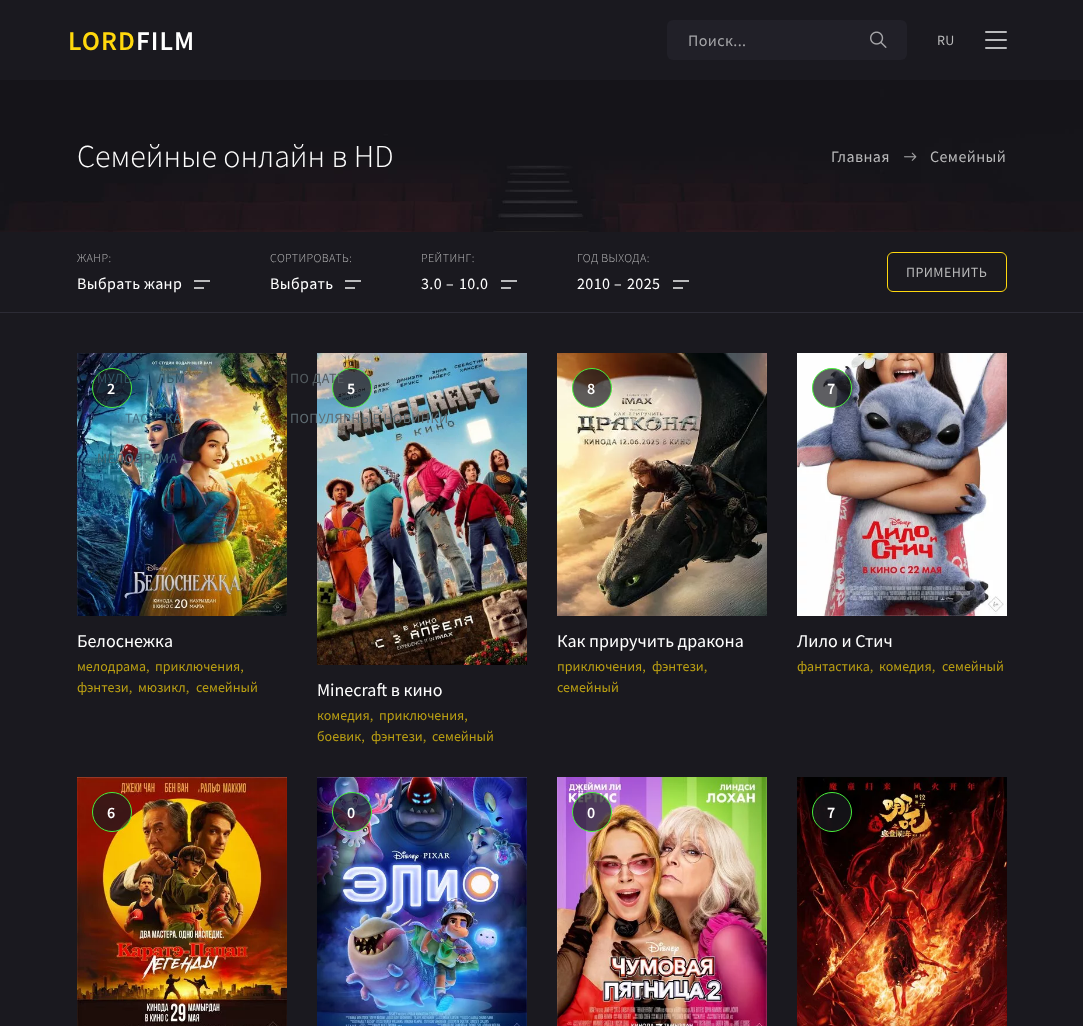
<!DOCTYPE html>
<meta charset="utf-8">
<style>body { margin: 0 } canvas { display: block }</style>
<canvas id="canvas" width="1083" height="1026"></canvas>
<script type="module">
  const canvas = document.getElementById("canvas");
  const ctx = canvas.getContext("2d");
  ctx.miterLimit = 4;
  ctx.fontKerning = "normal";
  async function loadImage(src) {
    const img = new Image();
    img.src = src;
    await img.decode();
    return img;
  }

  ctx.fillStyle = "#1a191f";
  ctx.fillRect(0, 0, 1083, 1026);
  ctx.letterSpacing = "1px";
  ctx.font = "600 27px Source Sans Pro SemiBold";
  ctx.fillStyle = "#ffd80d";
  ctx.fillText("LORD", 68, 50);
  ctx.fillStyle = "#ffffff";
  ctx.fillText("FILM", 136, 50);
  ctx.fillStyle = "#212028";
  ctx.beginPath();
  ctx.roundRect(667, 20, 240, 40, 6);
  ctx.fill();
  ctx.letterSpacing = "0.4px";
  ctx.font = "16px Source Sans Pro";
  ctx.fillStyle = "#a6a6a9";
  ctx.fillText("Поиск...", 688, 46);
  ctx.drawImage(await loadImage("img1.png"), 870, 31, 17, 17);
  ctx.font = "14px Source Sans Pro";
  ctx.fillStyle = "#b9b9ba";
  ctx.fillText("RU", 937, 45);
  ctx.fillStyle = "#bababc";
  ctx.beginPath();
  ctx.roundRect(985, 31, 22, 2, 1);
  ctx.fill();
  ctx.beginPath();
  ctx.roundRect(985, 39, 22, 2, 1);
  ctx.fill();
  ctx.beginPath();
  ctx.roundRect(985, 47, 22, 2, 1);
  ctx.fill();
  ctx.drawImage(await loadImage("img2.png"), 0, 80, 1083, 152);
  ctx.letterSpacing = "0px";
  ctx.font = "300 32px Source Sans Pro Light";
  ctx.fillStyle = "#ffffff";
  ctx.fillText("Семейные онлайн в HD", 77, 167);
  ctx.letterSpacing = "0.4px";
  ctx.font = "16px Source Sans Pro";
  ctx.fillStyle = "#b9b9ba";
  ctx.fillText("Главная", 831, 162);
  ctx.drawImage(await loadImage("img3.png"), 904, 152, 13, 9);
  ctx.fillText("Семейный", 930, 162);
  ctx.fillStyle = "#2c2b35";
  ctx.fillRect(0, 312, 1083, 1);
  ctx.font = "300 12px Source Sans Pro Light";
  ctx.fillStyle = "#b9b9ba";
  ctx.fillText("ЖАНР:", 77, 262);
  ctx.font = "16px Source Sans Pro";
  ctx.fillStyle = "#ffffff";
  ctx.fillText("Выбрать жанр", 77, 289);
  ctx.fillStyle = "#bababc";
  ctx.fillRect(194, 280, 16, 2);
  ctx.fillRect(194, 287, 10, 2);
  ctx.drawImage(await loadImage("img4.png"), 77, 353, 210, 263);
  ctx.fillStyle = "rgba(26, 25, 31, 0.7)";
  ctx.beginPath();
  ctx.arc(112, 388, 19.5, 0, Math.PI * 2);
  ctx.fill();
  ctx.strokeStyle = "#48ee3b";
  ctx.stroke();
  ctx.font = "14px Source Sans Pro";
  ctx.fillStyle = "#325564";
  ctx.fillText("МУЛЬ", 97, 383);
  ctx.fillText("ЛЬМ", 157, 383);
  ctx.fillStyle = "#407289";
  ctx.fillText("ТАС", 125, 423);
  ctx.fillText("КА", 165, 423);
  ctx.fillStyle = "#436574";
  ctx.fillText("МЕЛОДРАМА", 97, 463);
  ctx.font = "300 12px Source Sans Pro Light";
  ctx.fillStyle = "#b9b9ba";
  ctx.fillText("СОРТИРОВАТЬ:", 270, 262);
  ctx.font = "16px Source Sans Pro";
  ctx.fillStyle = "#ffffff";
  ctx.fillText("Выбрать", 270, 289);
  ctx.fillStyle = "#bababc";
  ctx.fillRect(345, 280, 16, 2);
  ctx.fillRect(345, 287, 10, 2);
  ctx.drawImage(await loadImage("img5.png"), 317, 353, 210, 312);
  ctx.fillStyle = "rgba(26, 25, 31, 0.7)";
  ctx.beginPath();
  ctx.arc(352, 388, 19.5, 0, Math.PI * 2);
  ctx.fill();
  ctx.stroke();
  ctx.font = "14px Source Sans Pro";
  ctx.fillStyle = "#545c60";
  ctx.fillText("ПО ДАТЕ", 290, 383);
  ctx.fillStyle = "#606e74";
  ctx.fillText("ПОПУЛЯРНЫЕ НОВИНКИ", 290, 423);
  ctx.font = "300 12px Source Sans Pro Light";
  ctx.fillStyle = "#b9b9ba";
  ctx.fillText("РЕЙТИНГ:", 421, 262);
  ctx.font = "16px Source Sans Pro";
  ctx.fillStyle = "#ffffff";
  ctx.fillText("3.0", 421, 289);
  ctx.fillText("–", 446, 289);
  ctx.fillText("10.0", 459, 289);
  ctx.fillStyle = "#bababc";
  ctx.fillRect(501, 280, 16, 2);
  ctx.fillRect(501, 287, 10, 2);
  ctx.font = "300 12px Source Sans Pro Light";
  ctx.fillStyle = "#b9b9ba";
  ctx.fillText("ГОД ВЫХОДА:", 577, 262);
  ctx.font = "16px Source Sans Pro";
  ctx.fillStyle = "#ffffff";
  ctx.fillText("2010", 577, 289);
  ctx.fillText("–", 614, 289);
  ctx.fillText("2025", 627, 289);
  ctx.fillStyle = "#bababc";
  ctx.fillRect(673, 280, 16, 2);
  ctx.fillRect(673, 287, 10, 2);
  ctx.beginPath();
  ctx.roundRect(887.5, 252.5, 119, 39, 5.5);
  ctx.strokeStyle = "#ffd80e";
  ctx.stroke();
  ctx.font = "14px Source Sans Pro";
  ctx.fillStyle = "#b9b9ba";
  ctx.fillText("ПРИМЕНИТЬ", 906, 277);
  ctx.font = "600 16px Source Sans Pro SemiBold";
  ctx.fillStyle = "#ffffff";
  ctx.fillText("2", 107, 394);
  ctx.letterSpacing = "0px";
  ctx.font = "18px Source Sans Pro";
  ctx.fillText("Белоснежка", 77, 647);
  ctx.font = "14px Source Sans Pro";
  ctx.fillStyle = "#ba9f13";
  ctx.fillText("мелодрама,", 77, 671);
  ctx.fillText("приключения,", 155, 671);
  ctx.fillText("фэнтези,", 77, 692);
  ctx.fillText("мюзикл,", 138, 692);
  ctx.fillText("семейный", 196, 692);
  ctx.letterSpacing = "0.4px";
  ctx.font = "600 16px Source Sans Pro SemiBold";
  ctx.fillStyle = "#ffffff";
  ctx.fillText("5", 347, 394);
  ctx.letterSpacing = "0px";
  ctx.font = "18px Source Sans Pro";
  ctx.fillText("Minecraft в кино", 317, 696);
  ctx.font = "14px Source Sans Pro";
  ctx.fillStyle = "#ba9f13";
  ctx.fillText("комедия,", 317, 720);
  ctx.fillText("приключения,", 379, 720);
  ctx.fillText("боевик,", 317, 741);
  ctx.fillText("фэнтези,", 371, 741);
  ctx.fillText("семейный", 432, 741);
  ctx.drawImage(await loadImage("img6.png"), 557, 353, 210, 263);
  ctx.fillStyle = "rgba(26, 25, 31, 0.7)";
  ctx.beginPath();
  ctx.arc(592, 388, 19.5, 0, Math.PI * 2);
  ctx.fill();
  ctx.strokeStyle = "#48ee3b";
  ctx.stroke();
  ctx.letterSpacing = "0.4px";
  ctx.font = "600 16px Source Sans Pro SemiBold";
  ctx.fillStyle = "#ffffff";
  ctx.fillText("8", 587, 394);
  ctx.letterSpacing = "0px";
  ctx.font = "18px Source Sans Pro";
  ctx.fillText("Как приручить дракона", 557, 647);
  ctx.font = "14px Source Sans Pro";
  ctx.fillStyle = "#ba9f13";
  ctx.fillText("приключения,", 557, 671);
  ctx.fillText("фэнтези,", 652, 671);
  ctx.fillText("семейный", 557, 692);
  ctx.drawImage(await loadImage("img7.png"), 797, 353, 210, 263);
  ctx.fillStyle = "rgba(26, 25, 31, 0.7)";
  ctx.beginPath();
  ctx.arc(832, 388, 19.5, 0, Math.PI * 2);
  ctx.fill();
  ctx.stroke();
  ctx.letterSpacing = "0.4px";
  ctx.font = "600 16px Source Sans Pro SemiBold";
  ctx.fillStyle = "#ffffff";
  ctx.fillText("7", 827, 394);
  ctx.letterSpacing = "0px";
  ctx.font = "18px Source Sans Pro";
  ctx.fillText("Лило и Стич", 797, 647);
  ctx.font = "14px Source Sans Pro";
  ctx.fillStyle = "#ba9f13";
  ctx.fillText("фантастика,", 797, 671);
  ctx.fillText("комедия,", 879, 671);
  ctx.fillText("семейный", 942, 671);
  ctx.drawImage(await loadImage("img8.png"), 77, 777, 210, 249);
  ctx.fillStyle = "rgba(26, 25, 31, 0.7)";
  ctx.beginPath();
  ctx.arc(112, 812, 19.5, 0, Math.PI * 2);
  ctx.fill();
  ctx.stroke();
  ctx.letterSpacing = "0.4px";
  ctx.font = "600 16px Source Sans Pro SemiBold";
  ctx.fillStyle = "#ffffff";
  ctx.fillText("6", 107, 818);
  ctx.drawImage(await loadImage("img9.png"), 317, 777, 210, 249);
  ctx.fillStyle = "rgba(26, 25, 31, 0.7)";
  ctx.beginPath();
  ctx.arc(352, 812, 19.5, 0, Math.PI * 2);
  ctx.fill();
  ctx.stroke();
  ctx.fillStyle = "#ffffff";
  ctx.fillText("0", 347, 818);
  ctx.drawImage(await loadImage("img10.png"), 557, 777, 210, 249);
  ctx.fillStyle = "rgba(26, 25, 31, 0.7)";
  ctx.beginPath();
  ctx.arc(592, 812, 19.5, 0, Math.PI * 2);
  ctx.fill();
  ctx.stroke();
  ctx.fillStyle = "#ffffff";
  ctx.fillText("0", 587, 818);
  ctx.drawImage(await loadImage("img11.png"), 797, 777, 210, 249);
  ctx.fillStyle = "rgba(26, 25, 31, 0.7)";
  ctx.beginPath();
  ctx.arc(832, 812, 19.5, 0, Math.PI * 2);
  ctx.fill();
  ctx.stroke();
  ctx.fillStyle = "#ffffff";
  ctx.fillText("7", 827, 818);
</script>
